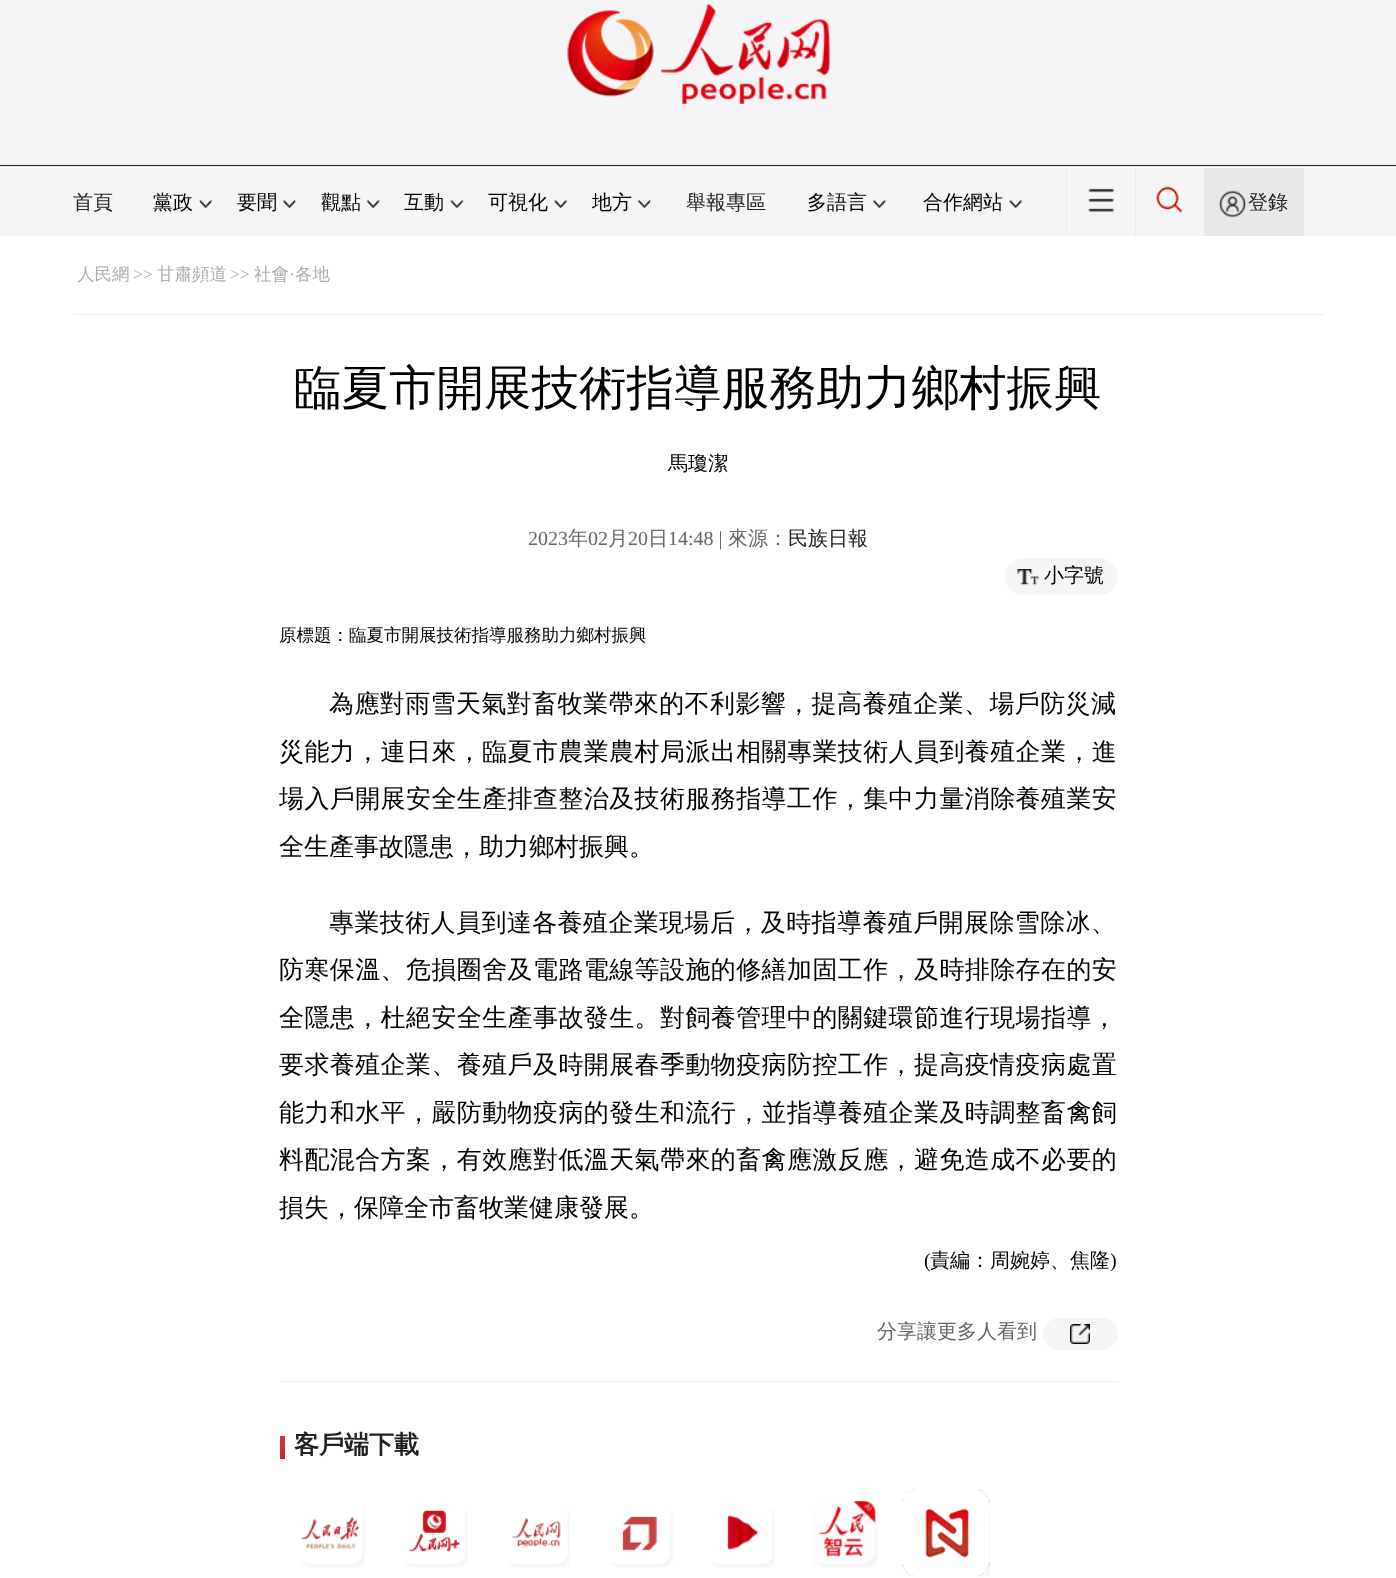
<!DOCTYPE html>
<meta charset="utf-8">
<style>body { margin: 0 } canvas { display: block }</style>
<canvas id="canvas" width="1396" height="1578"></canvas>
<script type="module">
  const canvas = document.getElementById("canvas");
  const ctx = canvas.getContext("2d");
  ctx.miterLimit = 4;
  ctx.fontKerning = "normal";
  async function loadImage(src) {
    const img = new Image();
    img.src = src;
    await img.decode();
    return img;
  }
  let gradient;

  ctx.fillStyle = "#ffffff";
  ctx.fillRect(0, 0, 1396, 1578);
  ctx.fillStyle = "#f5f5f7";
  ctx.fillRect(0, 0, 1396, 165);
  ctx.fillStyle = "#212121";
  ctx.fillRect(0, 165, 1396, 1);
  ctx.drawImage(await loadImage("img1.png"), 567, 4, 263, 100);
  ctx.fillStyle = "#e9e9e9";
  ctx.fillRect(0, 166, 1396, 1);
  ctx.fillStyle = "#f5f5f7";
  ctx.fillRect(0, 168, 1396, 68);
  ctx.font = "500 20px WenQuanYi Zen Hei";
  ctx.fillStyle = "#212121";
  ctx.fillText("首頁", 73, 209);
  ctx.fillStyle = "#000000";
  ctx.fillText("黨政", 153, 209);
  ctx.drawImage(await loadImage("img2.png"), 198, 200, 15, 8);
  ctx.fillText("要聞", 237, 209);
  ctx.drawImage(await loadImage("img3.png"), 282, 200, 15, 8);
  ctx.fillText("觀點", 321, 209);
  ctx.drawImage(await loadImage("img4.png"), 366, 200, 14, 8);
  ctx.fillText("互動", 404, 209);
  ctx.drawImage(await loadImage("img5.png"), 450, 200, 14, 8);
  ctx.fillText("可視化", 488, 209);
  ctx.drawImage(await loadImage("img6.png"), 553, 200, 15, 8);
  ctx.fillText("地方", 592, 209);
  ctx.drawImage(await loadImage("img7.png"), 637, 200, 15, 8);
  ctx.fillStyle = "#212121";
  ctx.fillText("舉報專區", 686, 209);
  ctx.fillStyle = "#000000";
  ctx.fillText("多語言", 807, 209);
  ctx.drawImage(await loadImage("img7.png"), 872, 200, 15, 8);
  ctx.fillText("合作網站", 923, 209);
  ctx.drawImage(await loadImage("img8.png"), 1008, 200, 15, 8);
  ctx.fillStyle = "#ebebed";
  ctx.fillRect(1135, 168, 1, 68);
  ctx.fillRect(1066, 168, 1, 68);
  ctx.drawImage(await loadImage("img9.png"), 1088, 188, 26, 24);
  ctx.drawImage(await loadImage("img10.png"), 1156, 186, 27, 28);
  ctx.fillStyle = "#e8e8ea";
  ctx.fillRect(1204, 168, 100, 68);
  ctx.drawImage(await loadImage("img11.png"), 1218, 190, 29, 28);
  ctx.fillStyle = "#212121";
  ctx.fillText("登錄", 1248, 209);
  ctx.fillStyle = "#ececec";
  ctx.fillRect(74, 314, 1250, 1);
  ctx.font = "500 17.5px WenQuanYi Zen Hei";
  ctx.fillStyle = "#adadad";
  ctx.fillText("人民網", 77, 280);
  ctx.font = "17.5px Liberation Serif";
  ctx.fillText(">>", 133, 280);
  ctx.font = "500 17.5px WenQuanYi Zen Hei";
  ctx.fillText("甘肅頻道", 157, 280);
  ctx.font = "17.5px Liberation Serif";
  ctx.fillText(">>", 230, 280);
  ctx.font = "500 17.5px WenQuanYi Zen Hei";
  ctx.fillText("社會", 254, 280);
  ctx.font = "17.5px Liberation Serif";
  ctx.fillText("·", 289, 280);
  ctx.font = "500 17.5px WenQuanYi Zen Hei";
  ctx.fillText("各地", 295, 280);
  ctx.font = "500 47.5px WenQuanYi Zen Hei";
  ctx.fillStyle = "#000000";
  ctx.fillText("臨夏市開展技術指導服務助力鄉村振興", 294, 404);
  ctx.font = "500 20px WenQuanYi Zen Hei";
  ctx.fillText("馬瓊潔", 668, 470);
  ctx.font = "20px Liberation Serif";
  ctx.fillStyle = "#666666";
  ctx.fillText("2023", 528, 545);
  ctx.font = "500 20px WenQuanYi Zen Hei";
  ctx.fillText("年", 568, 545);
  ctx.font = "20px Liberation Serif";
  ctx.fillText("02", 588, 545);
  ctx.font = "500 20px WenQuanYi Zen Hei";
  ctx.fillText("月", 608, 545);
  ctx.font = "20px Liberation Serif";
  ctx.fillText("20", 628, 545);
  ctx.font = "500 20px WenQuanYi Zen Hei";
  ctx.fillText("日", 648, 545);
  ctx.font = "20px Liberation Serif";
  ctx.fillText("14:48 |", 668, 545);
  ctx.font = "500 20px WenQuanYi Zen Hei";
  ctx.fillText("來源：", 728, 545);
  ctx.fillStyle = "#212121";
  ctx.fillText("民族日報", 788, 545);
  ctx.fillStyle = "#f5f5f7";
  ctx.beginPath();
  ctx.roundRect(1005, 558, 113, 37, 18.5);
  ctx.fill();
  ctx.drawImage(await loadImage("img12.png"), 1017, 569, 22, 17);
  ctx.fillStyle = "#000000";
  ctx.fillText("小字號", 1044, 582);
  ctx.font = "500 17.5px WenQuanYi Zen Hei";
  ctx.fillText("原標題：臨夏市開展技術指導服務助力鄉村振興", 279, 641);
  ctx.letterSpacing = "0.4px";
  ctx.font = "500 25px WenQuanYi Zen Hei";
  ctx.fillText("為應對雨雪天氣對畜牧業帶來的不利影響，提高養殖企業、場戶防災減", 329, 712);
  ctx.fillText("災能力，連日來，臨夏市農業農村局派出相關專業技術人員到養殖企業，進", 279, 760);
  ctx.fillText("場入戶開展安全生產排查整治及技術服務指導工作，集中力量消除養殖業安", 279, 807);
  ctx.letterSpacing = "0px";
  ctx.fillText("全生產事故隱患，助力鄉村振興。", 279, 855);
  ctx.letterSpacing = "0.4px";
  ctx.fillText("專業技術人員到達各養殖企業現場后，及時指導養殖戶開展除雪除冰、", 329, 931);
  ctx.fillText("防寒保溫、危損圈舍及電路電線等設施的修繕加固工作，及時排除存在的安", 279, 978);
  ctx.fillText("全隱患，杜絕安全生產事故發生。對飼養管理中的關鍵環節進行現場指導，", 279, 1026);
  ctx.fillText("要求養殖企業、養殖戶及時開展春季動物疫病防控工作，提高疫情疫病處置", 279, 1073);
  ctx.fillText("能力和水平，嚴防動物疫病的發生和流行，並指導養殖企業及時調整畜禽飼", 279, 1121);
  ctx.fillText("料配混合方案，有效應對低溫天氣帶來的畜禽應激反應，避免造成不必要的", 279, 1168);
  ctx.letterSpacing = "0px";
  ctx.fillText("損失，保障全市畜牧業健康發展。", 279, 1216);
  ctx.font = "20px Liberation Serif";
  ctx.fillText("(", 924, 1267);
  ctx.font = "500 20px WenQuanYi Zen Hei";
  ctx.fillText("責編：周婉婷、焦隆", 930, 1267);
  ctx.font = "20px Liberation Serif";
  ctx.fillText(")", 1110, 1267);
  ctx.font = "500 20px WenQuanYi Zen Hei";
  ctx.fillStyle = "#666666";
  ctx.fillText("分享讓更多人看到", 877, 1338);
  ctx.fillStyle = "#f5f5f7";
  ctx.beginPath();
  ctx.roundRect(1043, 1318, 75, 32, 16);
  ctx.fill();
  ctx.drawImage(await loadImage("img13.png"), 1070, 1324, 20, 20);
  ctx.fillStyle = "#ececec";
  ctx.fillRect(280, 1381, 838, 1);
  gradient = ctx.createLinearGradient(276, 1441, 289, 1454);
  gradient.addColorStop(0, "#c53d3d");
  gradient.addColorStop(0.49, "#c43a3a");
  gradient.addColorStop(1, "#bb2d2d");
  ctx.fillStyle = gradient;
  ctx.fillRect(280, 1436, 5, 23);
  ctx.font = "bold 25px WenQuanYi Zen Hei";
  ctx.fillStyle = "#212121";
  ctx.fillText("客戶端下載", 294, 1453);
  ctx.drawImage(await loadImage("img14.png"), 300, 1508, 65, 60);
  ctx.drawImage(await loadImage("img15.png"), 405, 1509, 63, 59);
  ctx.drawImage(await loadImage("img16.png"), 507, 1508, 63, 60);
  ctx.drawImage(await loadImage("img17.png"), 610, 1509, 63, 59);
  ctx.drawImage(await loadImage("img18.png"), 712, 1508, 63, 60);
  ctx.drawImage(await loadImage("img19.png"), 812, 1501, 66, 67);
  ctx.drawImage(await loadImage("img20.png"), 902, 1489, 88, 88);
</script>
